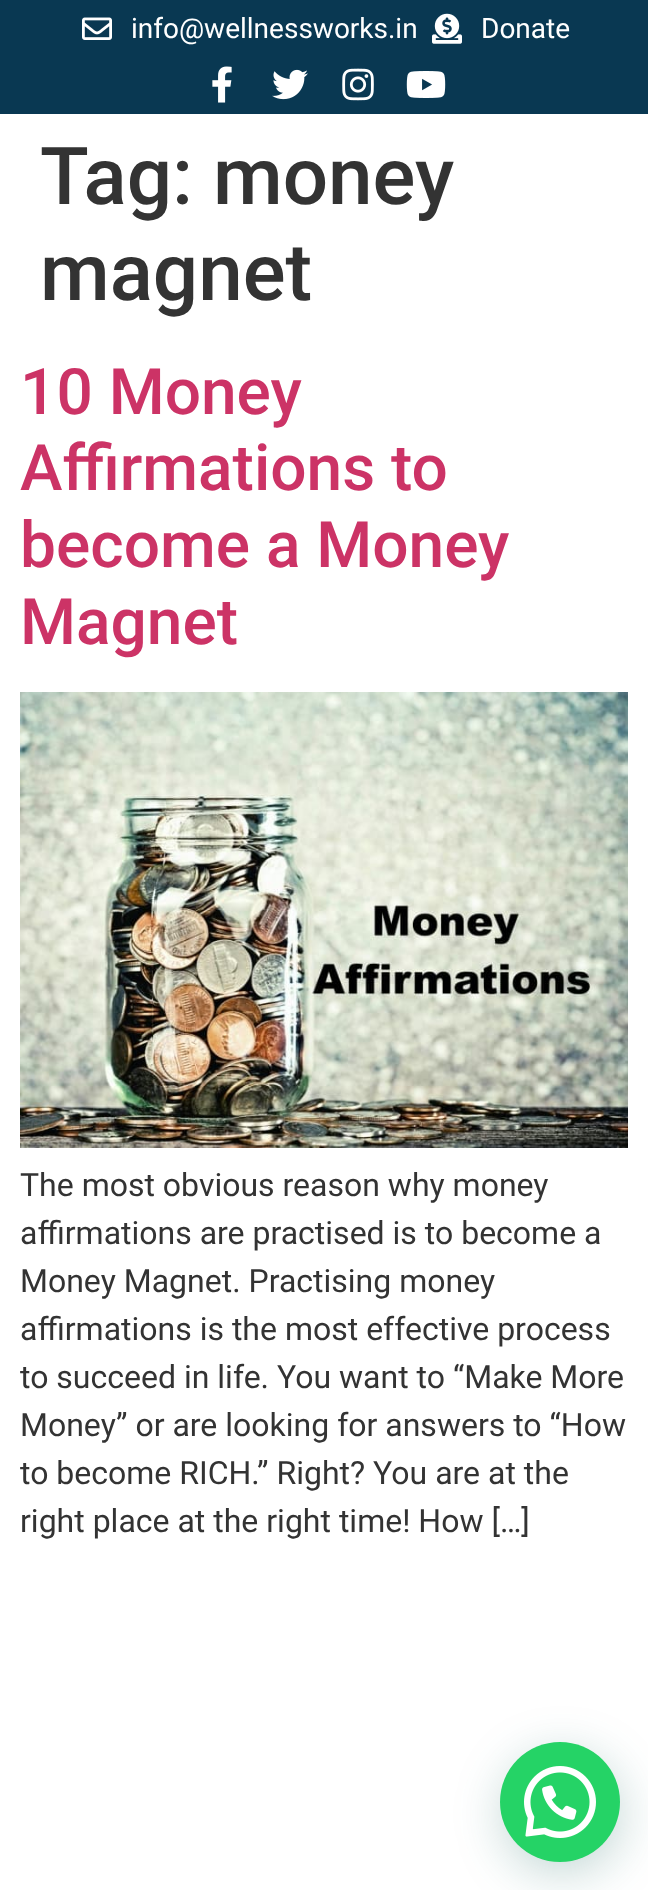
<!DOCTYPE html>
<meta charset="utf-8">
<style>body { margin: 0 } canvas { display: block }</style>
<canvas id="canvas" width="648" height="1890"></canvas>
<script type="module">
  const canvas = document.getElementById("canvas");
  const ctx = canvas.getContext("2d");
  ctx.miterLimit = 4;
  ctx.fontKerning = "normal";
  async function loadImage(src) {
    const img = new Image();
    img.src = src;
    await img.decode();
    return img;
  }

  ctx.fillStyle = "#ffffff";
  ctx.fillRect(0, 0, 648, 1890);
  ctx.fillStyle = "#093852";
  ctx.fillRect(0, 0, 648, 114);
  ctx.drawImage(await loadImage("img1.png"), 82, 17, 30, 23);
  ctx.font = "28px Roboto";
  ctx.fillStyle = "#ffffff";
  ctx.fillText("info@wellnessworks.in", 131, 38);
  ctx.drawImage(await loadImage("img2.png"), 432, 13, 30, 31);
  ctx.fillText("Donate", 481, 38);
  ctx.drawImage(await loadImage("img3.png"), 212, 66, 20, 37);
  ctx.drawImage(await loadImage("img4.png"), 272, 69, 36, 31);
  ctx.drawImage(await loadImage("img5.png"), 342, 68, 32, 33);
  ctx.drawImage(await loadImage("img6.png"), 406, 71, 40, 27);
  ctx.font = "500 80px Roboto";
  ctx.fillStyle = "#333333";
  ctx.fillText("Tag: money", 40, 204);
  ctx.fillText("magnet", 40, 300);
  ctx.font = "500 64px Roboto";
  ctx.fillStyle = "#cc3366";
  ctx.fillText("10 Money", 20, 414);
  ctx.fillText("Affirmations to", 20, 490);
  ctx.fillText("become a Money", 20, 567);
  ctx.fillText("Magnet", 20, 644);
  ctx.drawImage(await loadImage("img7.png"), 20, 692, 608, 456);
  ctx.font = "32px Roboto";
  ctx.fillStyle = "#333333";
  ctx.fillText("The most obvious reason why money", 20, 1196);
  ctx.fillText("affirmations are practised is to become a", 20, 1244);
  ctx.fillText("Money Magnet. Practising money", 20, 1292);
  ctx.fillText("affirmations is the most effective process", 20, 1340);
  ctx.fillText("to succeed in life. You want to “Make More", 20, 1388);
  ctx.fillText("Money” or are looking for answers to “How", 20, 1436);
  ctx.fillText("to become RICH.” Right? You are at the", 20, 1484);
  ctx.fillText("right place at the right time! How […]", 20, 1532);
  ctx.fillStyle = "rgba(7, 94, 84, 0.24)";
  ctx.filter = "blur(24px)";
  ctx.beginPath();
  ctx.roundRect(502, 1754, 120, 120, 60);
  ctx.fill();
  ctx.filter = "none";
  ctx.fillStyle = "#25d366";
  ctx.beginPath();
  ctx.arc(560, 1802, 60, 0, Math.PI * 2);
  ctx.fill();
  ctx.drawImage(await loadImage("img8.png"), 524, 1766, 72, 72);
</script>
